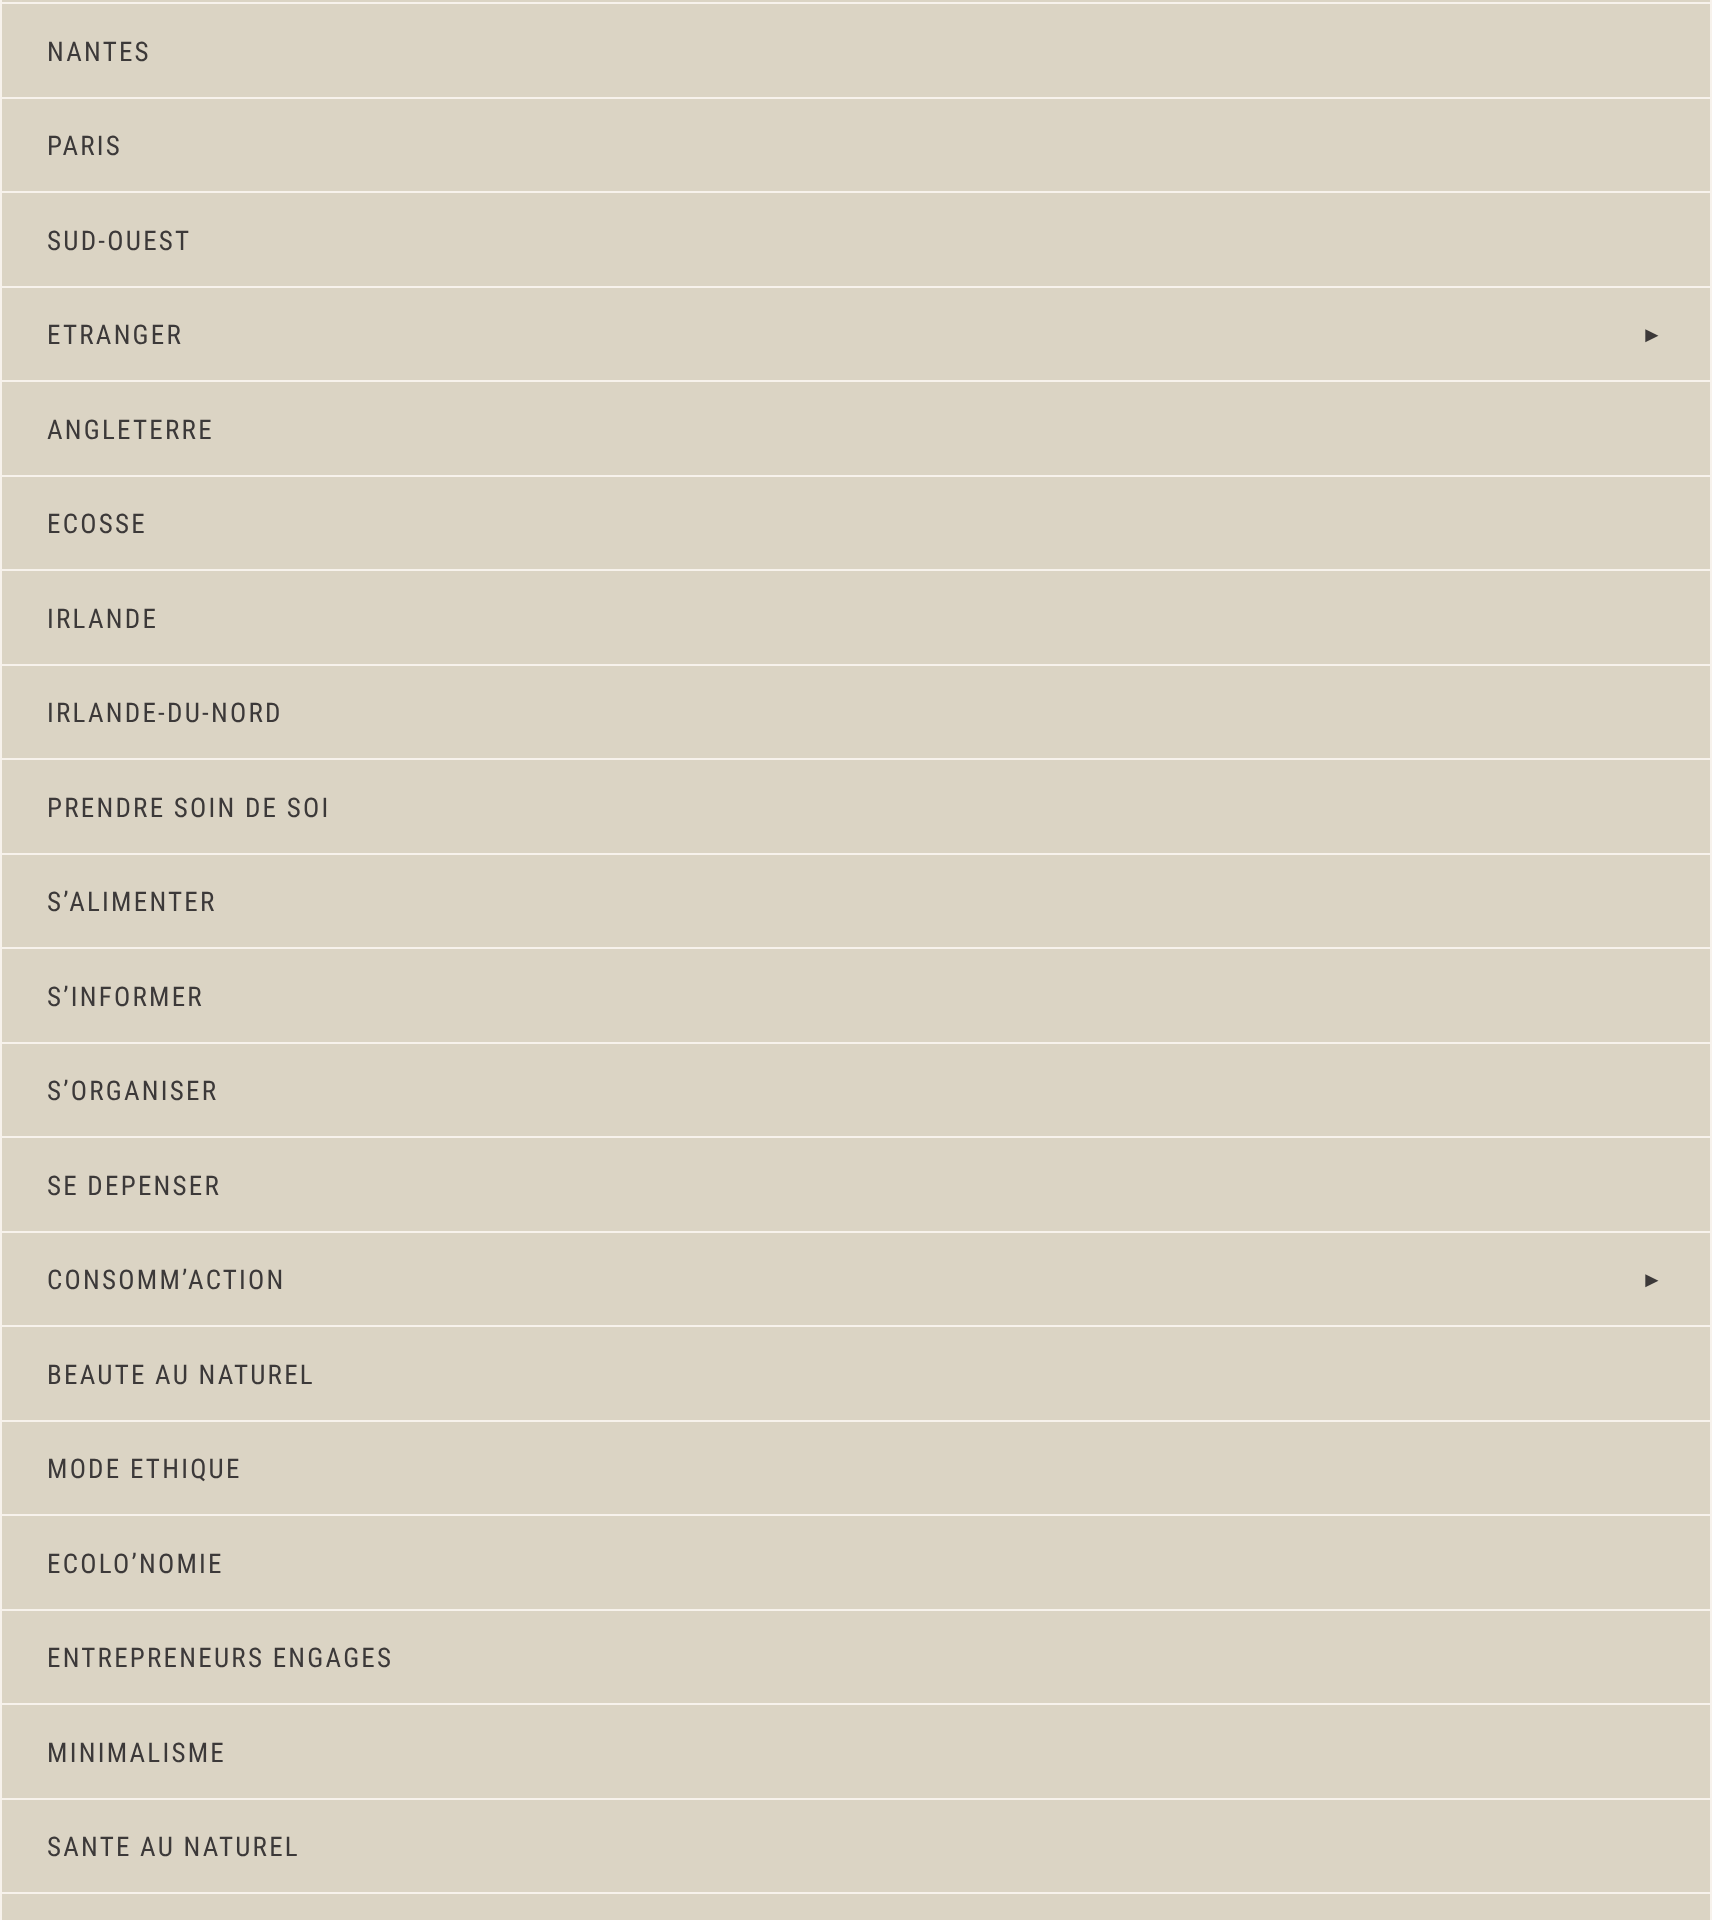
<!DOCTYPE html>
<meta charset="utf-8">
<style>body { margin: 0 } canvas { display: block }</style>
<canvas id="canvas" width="1712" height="1920"></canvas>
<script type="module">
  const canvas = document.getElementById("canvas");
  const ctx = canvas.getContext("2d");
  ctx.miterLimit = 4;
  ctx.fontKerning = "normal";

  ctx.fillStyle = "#dbd4c4";
  ctx.fillRect(0, 0, 1712, 1920);
  ctx.fillStyle = "#f7f2ec";
  ctx.fillRect(1710, 0, 2, 1920);
  ctx.fillRect(0, 0, 2, 1920);
  ctx.fillRect(2, 2, 1708, 2);
  ctx.fillRect(2, 97, 1708, 2);
  ctx.letterSpacing = "2.25px";
  ctx.font = "27px Roboto Condensed";
  ctx.fillStyle = "#3c3939";
  ctx.fillText("NANTES", 47, 61);
  ctx.fillStyle = "#f7f2ec";
  ctx.fillRect(2, 191, 1708, 2);
  ctx.fillStyle = "#3c3939";
  ctx.fillText("PARIS", 47, 155);
  ctx.fillStyle = "#f7f2ec";
  ctx.fillRect(2, 286, 1708, 2);
  ctx.fillStyle = "#3c3939";
  ctx.fillText("SUD-OUEST", 47, 250);
  ctx.fillStyle = "#f7f2ec";
  ctx.fillRect(2, 380, 1708, 2);
  ctx.fillStyle = "#3c3939";
  ctx.fillText("ETRANGER", 47, 344);
  ctx.font = "22px Liberation Sans";
  ctx.fillText("►", 1641, 342);
  ctx.fillStyle = "#f7f2ec";
  ctx.fillRect(2, 475, 1708, 2);
  ctx.font = "27px Roboto Condensed";
  ctx.fillStyle = "#3c3939";
  ctx.fillText("ANGLETERRE", 47, 439);
  ctx.fillStyle = "#f7f2ec";
  ctx.fillRect(2, 569, 1708, 2);
  ctx.fillStyle = "#3c3939";
  ctx.fillText("ECOSSE", 47, 533);
  ctx.fillStyle = "#f7f2ec";
  ctx.fillRect(2, 664, 1708, 2);
  ctx.fillStyle = "#3c3939";
  ctx.fillText("IRLANDE", 47, 628);
  ctx.fillStyle = "#f7f2ec";
  ctx.fillRect(2, 758, 1708, 2);
  ctx.fillStyle = "#3c3939";
  ctx.fillText("IRLANDE-DU-NORD", 47, 722);
  ctx.fillStyle = "#f7f2ec";
  ctx.fillRect(2, 853, 1708, 2);
  ctx.fillStyle = "#3c3939";
  ctx.fillText("PRENDRE SOIN DE SOI", 47, 817);
  ctx.fillStyle = "#f7f2ec";
  ctx.fillRect(2, 947, 1708, 2);
  ctx.fillStyle = "#3c3939";
  ctx.fillText("S’ALIMENTER", 47, 911);
  ctx.fillStyle = "#f7f2ec";
  ctx.fillRect(2, 1042, 1708, 2);
  ctx.fillStyle = "#3c3939";
  ctx.fillText("S’INFORMER", 47, 1006);
  ctx.fillStyle = "#f7f2ec";
  ctx.fillRect(2, 1136, 1708, 2);
  ctx.fillStyle = "#3c3939";
  ctx.fillText("S’ORGANISER", 47, 1100);
  ctx.fillStyle = "#f7f2ec";
  ctx.fillRect(2, 1231, 1708, 2);
  ctx.fillStyle = "#3c3939";
  ctx.fillText("SE DEPENSER", 47, 1195);
  ctx.fillStyle = "#f7f2ec";
  ctx.fillRect(2, 1325, 1708, 2);
  ctx.fillStyle = "#3c3939";
  ctx.fillText("CONSOMM’ACTION", 47, 1289);
  ctx.font = "22px Liberation Sans";
  ctx.fillText("►", 1641, 1287);
  ctx.fillStyle = "#f7f2ec";
  ctx.fillRect(2, 1420, 1708, 2);
  ctx.font = "27px Roboto Condensed";
  ctx.fillStyle = "#3c3939";
  ctx.fillText("BEAUTE AU NATUREL", 47, 1384);
  ctx.fillStyle = "#f7f2ec";
  ctx.fillRect(2, 1514, 1708, 2);
  ctx.fillStyle = "#3c3939";
  ctx.fillText("MODE ETHIQUE", 47, 1478);
  ctx.fillStyle = "#f7f2ec";
  ctx.fillRect(2, 1609, 1708, 2);
  ctx.fillStyle = "#3c3939";
  ctx.fillText("ECOLO’NOMIE", 47, 1573);
  ctx.fillStyle = "#f7f2ec";
  ctx.fillRect(2, 1703, 1708, 2);
  ctx.fillStyle = "#3c3939";
  ctx.fillText("ENTREPRENEURS ENGAGES", 47, 1667);
  ctx.fillStyle = "#f7f2ec";
  ctx.fillRect(2, 1798, 1708, 2);
  ctx.fillStyle = "#3c3939";
  ctx.fillText("MINIMALISME", 47, 1762);
  ctx.fillStyle = "#f7f2ec";
  ctx.fillRect(2, 1892, 1708, 2);
  ctx.fillStyle = "#3c3939";
  ctx.fillText("SANTE AU NATUREL", 47, 1856);
</script>
